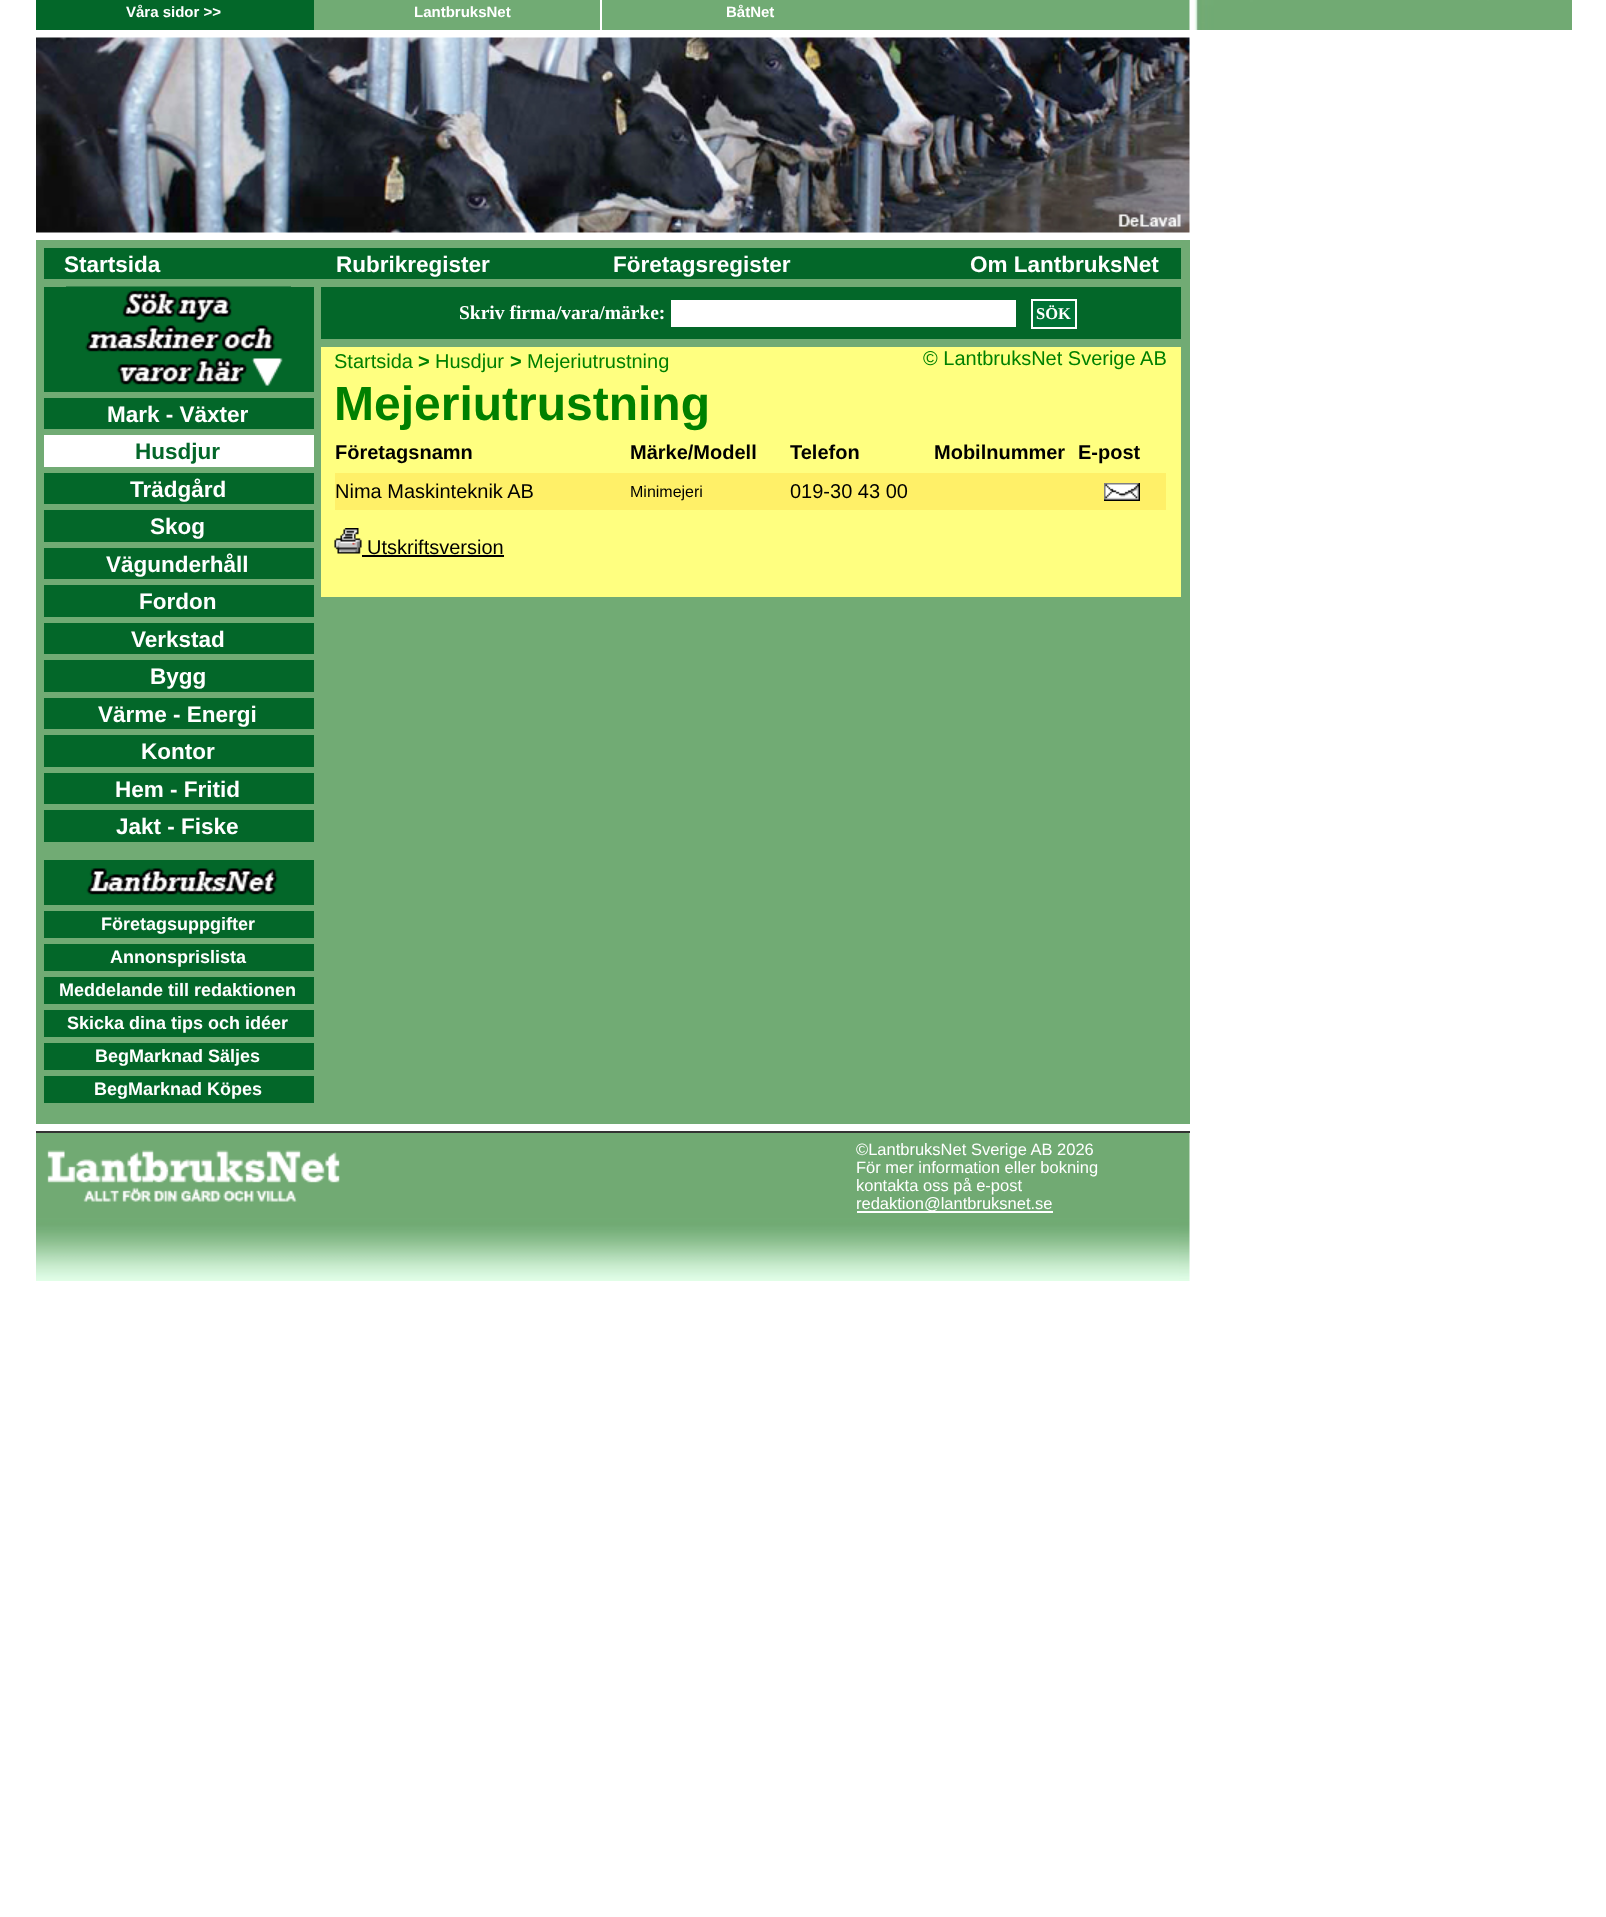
<!DOCTYPE html>
<meta charset="utf-8">
<style>body { margin: 0 } canvas { display: block }</style>
<canvas id="canvas" width="1606" height="1917"></canvas>
<script type="module">
  const canvas = document.getElementById("canvas");
  const ctx = canvas.getContext("2d");
  ctx.miterLimit = 4;
  ctx.fontKerning = "normal";
  async function loadImage(src) {
    const img = new Image();
    img.src = src;
    await img.decode();
    return img;
  }

  ctx.fillStyle = "#ffffff";
  ctx.fillRect(0, 0, 1606, 1917);
  ctx.fillStyle = "#71ab74";
  ctx.fillRect(314, 0, 876, 30);
  ctx.fillStyle = "#036729";
  ctx.fillRect(36, 0, 278, 30);
  ctx.font = "bold 15px Liberation Sans";
  ctx.fillStyle = "#ffffff";
  ctx.fillText("Våra sidor >>", 126, 17);
  ctx.fillRect(600, 0, 2, 30);
  ctx.fillText("LantbruksNet", 414, 17);
  ctx.fillText("BåtNet", 726, 17);
  ctx.drawImage(await loadImage("img1.png"), 1189, 0, 383, 30);
  ctx.drawImage(await loadImage("img2.png"), 36, 37, 1154, 196);
  ctx.fillStyle = "#71ab74";
  ctx.fillRect(36, 240, 1154, 884);
  ctx.fillStyle = "#036729";
  ctx.fillRect(44, 248, 1137, 31);
  ctx.font = "bold 22.5px Liberation Sans";
  ctx.fillStyle = "#ffffff";
  ctx.fillText("Startsida", 64, 272);
  ctx.fillText("Rubrikregister", 336, 272);
  ctx.fillText("Företagsregister", 613, 272);
  ctx.fillText("Om LantbruksNet", 970, 272);
  ctx.fillStyle = "#036729";
  ctx.fillRect(44, 287, 270, 105);
  ctx.drawImage(await loadImage("img3.png"), 66, 286, 225, 100);
  ctx.fillRect(44, 398, 270, 31);
  ctx.fillStyle = "#ffffff";
  ctx.fillText("Mark - Växter", 107, 422);
  ctx.fillRect(44, 435, 270, 32);
  ctx.fillStyle = "#036729";
  ctx.fillText("Husdjur", 135, 459);
  ctx.fillRect(44, 473, 270, 31);
  ctx.fillStyle = "#ffffff";
  ctx.fillText("Trädgård", 130, 497);
  ctx.fillStyle = "#036729";
  ctx.fillRect(44, 510, 270, 32);
  ctx.fillStyle = "#ffffff";
  ctx.fillText("Skog", 150, 534);
  ctx.fillStyle = "#036729";
  ctx.fillRect(44, 548, 270, 31);
  ctx.fillStyle = "#ffffff";
  ctx.fillText("Vägunderhåll", 106, 572);
  ctx.fillStyle = "#036729";
  ctx.fillRect(44, 585, 270, 32);
  ctx.fillStyle = "#ffffff";
  ctx.fillText("Fordon", 139, 609);
  ctx.fillStyle = "#036729";
  ctx.fillRect(44, 623, 270, 31);
  ctx.fillStyle = "#ffffff";
  ctx.fillText("Verkstad", 131, 647);
  ctx.fillStyle = "#036729";
  ctx.fillRect(44, 660, 270, 32);
  ctx.fillStyle = "#ffffff";
  ctx.fillText("Bygg", 150, 684);
  ctx.fillStyle = "#036729";
  ctx.fillRect(44, 698, 270, 31);
  ctx.fillStyle = "#ffffff";
  ctx.fillText("Värme - Energi", 98, 722);
  ctx.fillStyle = "#036729";
  ctx.fillRect(44, 735, 270, 32);
  ctx.fillStyle = "#ffffff";
  ctx.fillText("Kontor", 141, 759);
  ctx.fillStyle = "#036729";
  ctx.fillRect(44, 773, 270, 31);
  ctx.fillStyle = "#ffffff";
  ctx.fillText("Hem - Fritid", 115, 797);
  ctx.fillStyle = "#036729";
  ctx.fillRect(44, 810, 270, 32);
  ctx.fillStyle = "#ffffff";
  ctx.fillText("Jakt - Fiske", 116, 834);
  ctx.fillStyle = "#036729";
  ctx.fillRect(44, 860, 270, 45);
  ctx.drawImage(await loadImage("img4.png"), 86, 868, 192, 27);
  ctx.fillRect(44, 911, 270, 27);
  ctx.font = "bold 18px Liberation Sans";
  ctx.fillStyle = "#ffffff";
  ctx.fillText("Företagsuppgifter", 101, 930);
  ctx.fillStyle = "#036729";
  ctx.fillRect(44, 944, 270, 27);
  ctx.fillStyle = "#ffffff";
  ctx.fillText("Annonsprislista", 110, 963);
  ctx.fillStyle = "#036729";
  ctx.fillRect(44, 977, 270, 27);
  ctx.fillStyle = "#ffffff";
  ctx.fillText("Meddelande till redaktionen", 59, 996);
  ctx.fillStyle = "#036729";
  ctx.fillRect(44, 1010, 270, 27);
  ctx.fillStyle = "#ffffff";
  ctx.fillText("Skicka dina tips och idéer", 67, 1029);
  ctx.fillStyle = "#036729";
  ctx.fillRect(44, 1043, 270, 27);
  ctx.fillStyle = "#ffffff";
  ctx.fillText("BegMarknad Säljes", 95, 1062);
  ctx.fillStyle = "#036729";
  ctx.fillRect(44, 1076, 270, 27);
  ctx.fillStyle = "#ffffff";
  ctx.fillText("BegMarknad Köpes", 94, 1095);
  ctx.fillStyle = "#036729";
  ctx.fillRect(321, 287, 860, 52);
  ctx.font = "bold 19.5px Liberation Serif";
  ctx.fillStyle = "#ffffff";
  ctx.fillText("Skriv firma/vara/märke:", 459, 319);
  ctx.fillRect(671, 300, 345, 27);
  ctx.fillStyle = "#007336";
  ctx.beginPath();
  ctx.rect(1032, 300, 44, 28);
  ctx.fill();
  ctx.strokeStyle = "#ffffff";
  ctx.lineWidth = 2;
  ctx.stroke();
  ctx.font = "bold 16.5px Liberation Serif";
  ctx.fillStyle = "#ffffff";
  ctx.fillText("SÖK", 1036, 319);
  ctx.fillStyle = "#ffff80";
  ctx.fillRect(321, 347, 860, 250);
  ctx.font = "20px Liberation Sans";
  ctx.fillStyle = "#008000";
  ctx.fillText("Startsida", 334, 368);
  ctx.font = "bold 20px Liberation Sans";
  ctx.fillText(">", 418, 368);
  ctx.font = "20px Liberation Sans";
  ctx.fillText("Husdjur", 435, 368);
  ctx.font = "bold 20px Liberation Sans";
  ctx.fillText(">", 510, 368);
  ctx.font = "20px Liberation Sans";
  ctx.fillText("Mejeriutrustning", 527, 368);
  ctx.fillText("© LantbruksNet Sverige AB", 923, 365);
  ctx.font = "bold 48px Liberation Sans";
  ctx.fillText("Mejeriutrustning", 334, 420);
  ctx.font = "bold 20px Liberation Sans";
  ctx.fillStyle = "#000000";
  ctx.fillText("Företagsnamn", 335, 459);
  ctx.fillText("Märke/Modell", 630, 459);
  ctx.fillText("Telefon", 790, 459);
  ctx.fillText("Mobilnummer", 934, 459);
  ctx.fillText("E-post", 1078, 459);
  ctx.fillStyle = "#fff068";
  ctx.fillRect(335, 473, 831, 37);
  ctx.font = "20px Liberation Sans";
  ctx.fillStyle = "#000000";
  ctx.fillText("Nima Maskinteknik AB", 335, 498);
  ctx.font = "16px Liberation Sans";
  ctx.fillText("Minimejeri", 630, 497);
  ctx.font = "20px Liberation Sans";
  ctx.fillText("019-30 43 00", 790, 498);
  ctx.drawImage(await loadImage("img5.png"), 1104, 483, 36, 18);
  ctx.drawImage(await loadImage("img6.png"), 334, 528, 28, 26);
  ctx.fillText("Utskriftsversion", 367, 554);
  ctx.fillRect(362, 555, 142, 2);
  ctx.drawImage(await loadImage("img7.png"), 36, 1133, 813, 148);
  ctx.fillStyle = "#333333";
  ctx.fillRect(36, 1131, 1154, 2);
  ctx.drawImage(await loadImage("img8.png"), 47, 1150, 293, 52);
  ctx.drawImage(await loadImage("img9.png"), 849, 1133, 330, 148);
  ctx.font = "16.5px Liberation Sans";
  ctx.fillStyle = "#ffffff";
  ctx.fillText("©LantbruksNet Sverige AB 2026", 856, 1155);
  ctx.fillText("För mer information eller bokning", 856, 1173);
  ctx.fillText("kontakta oss på e-post", 856, 1191);
  ctx.fillRect(857, 1211, 196, 2);
  ctx.fillText("redaktion@lantbruksnet.se", 856, 1209);
  ctx.drawImage(await loadImage("img10.png"), 1179, 1133, 11, 148);
</script>
